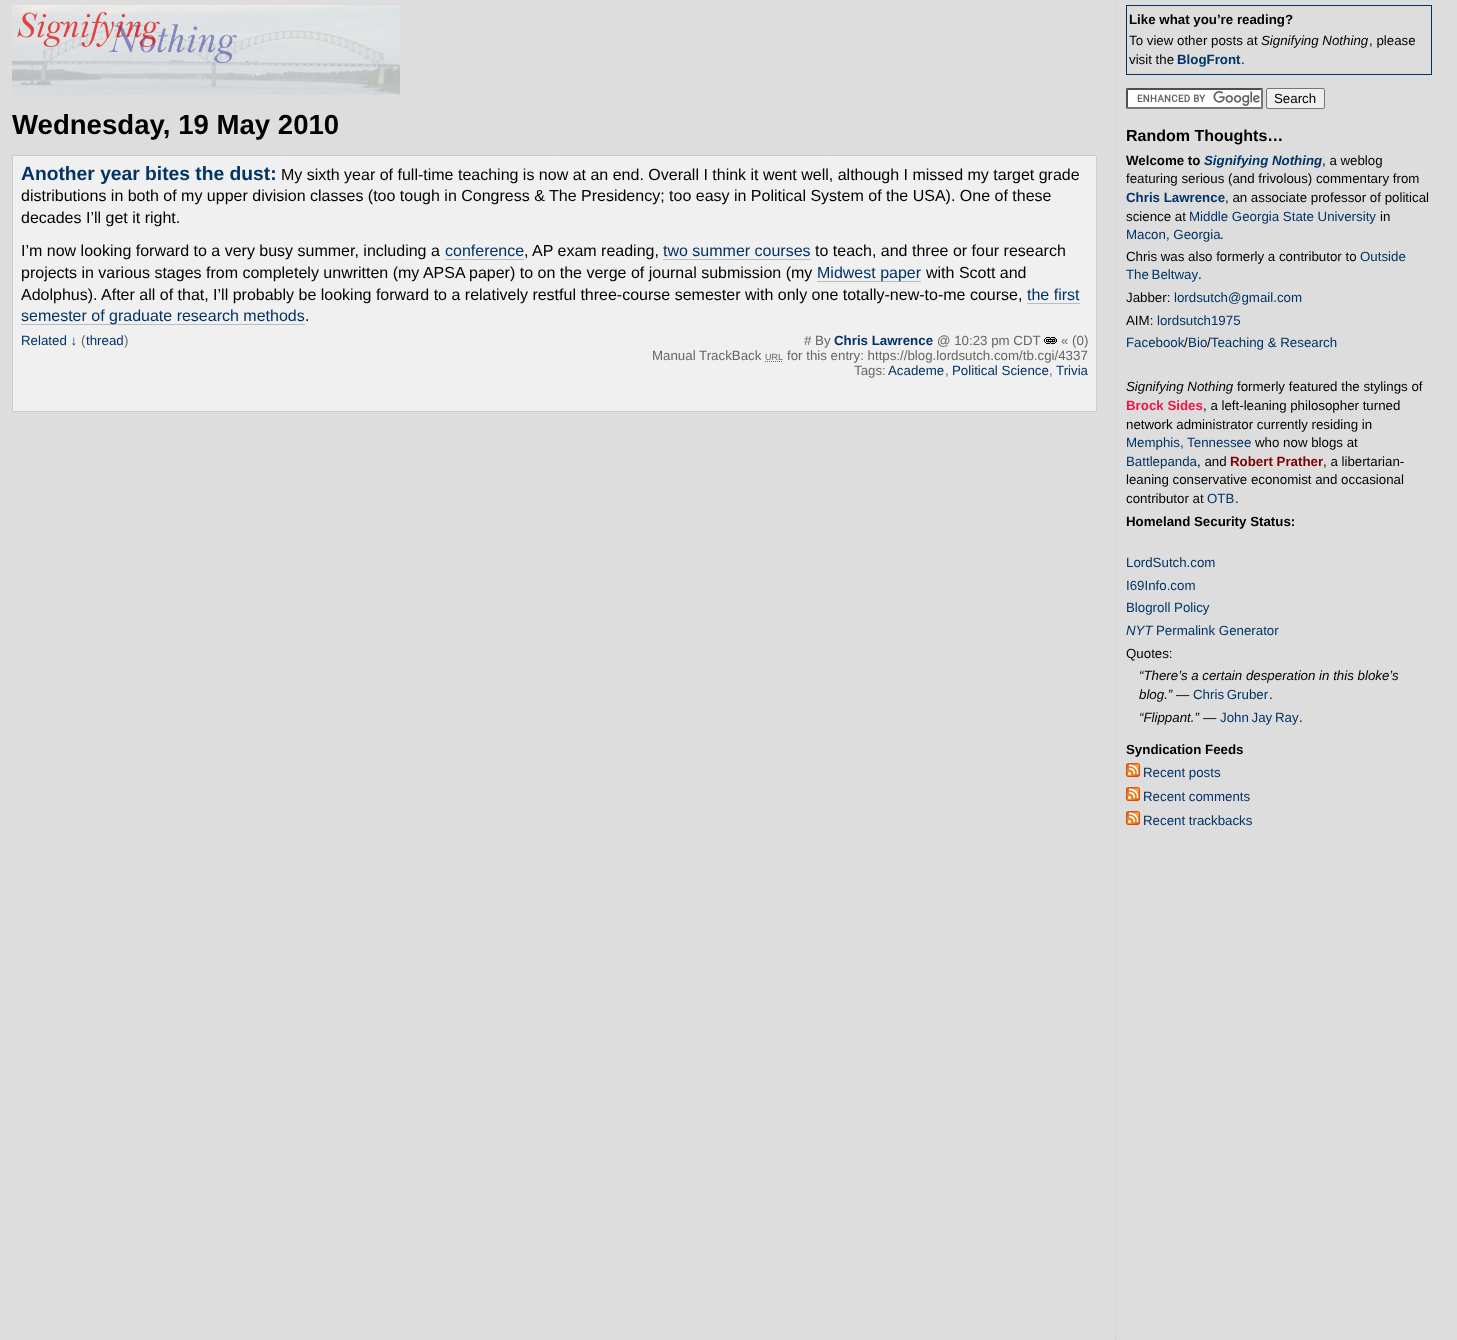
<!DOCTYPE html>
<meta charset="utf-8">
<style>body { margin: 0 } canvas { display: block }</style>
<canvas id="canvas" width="1457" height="1340"></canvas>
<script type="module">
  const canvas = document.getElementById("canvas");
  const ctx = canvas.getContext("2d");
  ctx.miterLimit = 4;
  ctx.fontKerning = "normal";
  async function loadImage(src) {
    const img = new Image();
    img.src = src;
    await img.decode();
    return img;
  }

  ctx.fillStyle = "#dddddd";
  ctx.fillRect(0, 0, 1457, 1340);
  ctx.drawImage(await loadImage("img1.png"), 12, 5, 388, 90);
  ctx.font = "bold 27.6px Liberation Sans";
  ctx.fillStyle = "#000000";
  ctx.fillText("Wednesday, 19 May 2010", 12, 134);
  ctx.fillStyle = "#f0f0f0";
  ctx.beginPath();
  ctx.rect(12.5, 155.5, 1084, 256);
  ctx.fill();
  ctx.strokeStyle = "#cccccc";
  ctx.stroke();
  ctx.font = "bold 19.25px Liberation Sans";
  ctx.fillStyle = "#003366";
  ctx.fillText("Another year bites the dust:", 21, 180);
  ctx.font = "16px Liberation Sans";
  ctx.fillStyle = "#000000";
  ctx.fillText("My sixth year of full-time teaching is now at an end. Overall I think it went well, although I missed my target grade", 281, 180);
  ctx.fillText("distributions in both of my upper division classes (too tough in Congress & The Presidency; too easy in Political System of the USA). One of these", 21, 201);
  ctx.fillText("decades I’ll get it right.", 21, 223);
  ctx.fillText("I’m now looking forward to a very busy summer, including a", 21, 256);
  ctx.fillStyle = "#003366";
  ctx.fillText("conference", 445, 256);
  ctx.fillStyle = "#bbbbbb";
  ctx.fillRect(445, 259, 79, 1);
  ctx.fillStyle = "#000000";
  ctx.fillText(", AP exam reading,", 524, 256);
  ctx.fillStyle = "#003366";
  ctx.fillText("two summer courses", 663, 256);
  ctx.fillStyle = "#bbbbbb";
  ctx.fillRect(663, 259, 148, 1);
  ctx.fillStyle = "#000000";
  ctx.fillText("to teach, and three or four research", 815, 256);
  ctx.fillText("projects in various stages from completely unwritten (my APSA", 21, 278);
  ctx.fillText("paper) to on the verge of journal submission (my", 469, 278);
  ctx.fillStyle = "#bbbbbb";
  ctx.fillRect(817, 281, 104, 1);
  ctx.fillStyle = "#003366";
  ctx.fillText("Midwest paper", 817, 278);
  ctx.fillStyle = "#000000";
  ctx.fillText("with Scott and", 926, 278);
  ctx.fillText("Adolphus). After all of that, I’ll probably be looking forward to a relatively restful three-course semester with only one totally-new-to-me course,", 21, 300);
  ctx.fillStyle = "#003366";
  ctx.fillText("the first", 1027, 300);
  ctx.fillStyle = "#bbbbbb";
  ctx.fillRect(1027, 303, 53, 1);
  ctx.fillRect(21, 324, 284, 1);
  ctx.fillStyle = "#003366";
  ctx.fillText("semester of graduate research methods", 21, 321);
  ctx.fillStyle = "#000000";
  ctx.fillText(".", 305, 321);
  ctx.font = "13.3px Liberation Sans";
  ctx.fillStyle = "#003366";
  ctx.fillText("Related ↓", 21, 345);
  ctx.fillStyle = "#666666";
  ctx.fillText("(", 81, 345);
  ctx.fillStyle = "#003366";
  ctx.fillText("thread", 86, 345);
  ctx.fillStyle = "#666666";
  ctx.fillText(")", 124, 345);
  ctx.fillText("# By", 804, 345);
  ctx.font = "bold 13.3px Liberation Sans";
  ctx.fillStyle = "#003366";
  ctx.fillText("Chris Lawrence", 834, 345);
  ctx.font = "13.3px Liberation Sans";
  ctx.fillStyle = "#666666";
  ctx.fillText("@ 10:23 pm CDT", 937, 345);
  ctx.drawImage(await loadImage("img2.png"), 1044, 337, 13, 7);
  ctx.fillText("« (0)", 1061, 345);
  ctx.fillText("Manual TrackBack", 652, 360);
  ctx.font = "9px Liberation Sans";
  ctx.fillText("URL", 765, 360);
  ctx.beginPath();
  ctx.moveTo(765, 361.5);
  ctx.lineTo(783, 361.5);
  ctx.strokeStyle = "#666666";
  ctx.setLineDash([1, 1]);
  ctx.stroke();
  ctx.font = "13.3px Liberation Sans";
  ctx.fillText("for this entry: https://blog.lordsutch.com/tb.cgi/4337", 787, 360);
  ctx.fillText("Tags:", 854, 375);
  ctx.fillStyle = "#003366";
  ctx.fillText("Academe", 888, 375);
  ctx.fillStyle = "#666666";
  ctx.fillText(",", 945, 375);
  ctx.fillStyle = "#003366";
  ctx.fillText("Political Science", 952, 375);
  ctx.fillStyle = "#666666";
  ctx.fillText(",", 1049, 375);
  ctx.fillStyle = "#003366";
  ctx.fillText("Trivia", 1056, 375);
  ctx.beginPath();
  ctx.moveTo(1115.5, 5);
  ctx.lineTo(1115.5, 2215);
  ctx.strokeStyle = "#cccccc";
  ctx.stroke();
  ctx.strokeStyle = "#003366";
  ctx.setLineDash([]);
  ctx.strokeRect(1126.5, 5.5, 305, 69);
  ctx.font = "bold 13.3px Liberation Sans";
  ctx.fillStyle = "#000000";
  ctx.fillText("Like what you’re reading?", 1129, 24);
  ctx.font = "13.3px Liberation Sans";
  ctx.fillText("To view other posts at", 1129, 45);
  ctx.font = "italic 13.3px Liberation Sans";
  ctx.fillText("Signifying Nothing", 1261, 45);
  ctx.font = "13.3px Liberation Sans";
  ctx.fillText(", please", 1369, 45);
  ctx.fillText("visit the", 1129, 64);
  ctx.font = "bold 13.3px Liberation Sans";
  ctx.fillStyle = "#003366";
  ctx.fillText("BlogFront", 1177, 64);
  ctx.font = "13.3px Liberation Sans";
  ctx.fillStyle = "#000000";
  ctx.fillText(".", 1241, 64);
  ctx.fillStyle = "#ffffff";
  ctx.fillRect(1126, 88, 137, 21);
  ctx.drawImage(await loadImage("img3.png"), 1137, 91, 123, 15);
  ctx.fillStyle = "#4f4f4f";
  ctx.beginPath();
  ctx.moveTo(1126, 88);
  ctx.lineTo(1263, 88);
  ctx.lineTo(1261, 90);
  ctx.lineTo(1128, 90);
  ctx.closePath();
  ctx.fill();
  ctx.fillStyle = "#767676";
  ctx.beginPath();
  ctx.moveTo(1263, 88);
  ctx.lineTo(1263, 109);
  ctx.lineTo(1261, 107);
  ctx.lineTo(1261, 90);
  ctx.closePath();
  ctx.fill();
  ctx.beginPath();
  ctx.moveTo(1263, 109);
  ctx.lineTo(1126, 109);
  ctx.lineTo(1128, 107);
  ctx.lineTo(1261, 107);
  ctx.closePath();
  ctx.fill();
  ctx.fillStyle = "#4f4f4f";
  ctx.beginPath();
  ctx.moveTo(1126, 109);
  ctx.lineTo(1126, 88);
  ctx.lineTo(1128, 90);
  ctx.lineTo(1128, 107);
  ctx.closePath();
  ctx.fill();
  ctx.fillStyle = "#efefef";
  ctx.beginPath();
  ctx.roundRect(1266.5, 88.5, 58, 20, 1.5);
  ctx.fill();
  ctx.strokeStyle = "#767676";
  ctx.stroke();
  ctx.fillStyle = "#000000";
  ctx.fillText("Search", 1274, 103);
  ctx.font = "bold 16px Liberation Sans";
  ctx.fillText("Random Thoughts…", 1126, 141);
  ctx.font = "bold 13.3px Liberation Sans";
  ctx.fillText("Welcome to", 1126, 165);
  ctx.font = "italic bold 13.3px Liberation Sans";
  ctx.fillStyle = "#003366";
  ctx.fillText("Signifying Nothing", 1204, 165);
  ctx.font = "13.3px Liberation Sans";
  ctx.fillStyle = "#000000";
  ctx.fillText(", a weblog", 1322, 165);
  ctx.fillText("featuring serious (and frivolous) commentary from", 1126, 183);
  ctx.font = "bold 13.3px Liberation Sans";
  ctx.fillStyle = "#003366";
  ctx.fillText("Chris Lawrence", 1126, 202);
  ctx.font = "13.3px Liberation Sans";
  ctx.fillStyle = "#000000";
  ctx.fillText(", an associate professor of political", 1225, 202);
  ctx.fillText("science at", 1126, 221);
  ctx.fillStyle = "#003366";
  ctx.fillText("Middle Georgia State University", 1189, 221);
  ctx.fillStyle = "#000000";
  ctx.fillText("in", 1380, 221);
  ctx.fillStyle = "#003366";
  ctx.fillText("Macon, Georgia", 1126, 239);
  ctx.fillStyle = "#000000";
  ctx.fillText(".", 1220, 239);
  ctx.fillText("Chris was also formerly a contributor to", 1126, 261);
  ctx.fillStyle = "#003366";
  ctx.fillText("Outside", 1360, 261);
  ctx.wordSpacing = "-1px";
  ctx.fillText("The Beltway", 1126, 279);
  ctx.wordSpacing = "0px";
  ctx.fillStyle = "#000000";
  ctx.fillText(".", 1198, 279);
  ctx.fillText("Jabber:", 1126, 302);
  ctx.fillStyle = "#003366";
  ctx.fillText("lordsutch@gmail.com", 1174, 302);
  ctx.fillStyle = "#000000";
  ctx.fillText("AIM:", 1126, 325);
  ctx.fillStyle = "#003366";
  ctx.fillText("lordsutch1975", 1157, 325);
  ctx.fillText("Facebook Bio Teaching & Research", 1126, 347);
  ctx.fillStyle = "#000000";
  ctx.fillText("/", 1184, 347);
  ctx.fillText("/", 1207, 347);
  ctx.font = "italic 13.3px Liberation Sans";
  ctx.fillText("Signifying Nothing", 1126, 391);
  ctx.font = "13.3px Liberation Sans";
  ctx.fillText("formerly featured the stylings of", 1237, 391);
  ctx.font = "bold 13.3px Liberation Sans";
  ctx.fillStyle = "#e81748";
  ctx.fillText("Brock Sides", 1126, 410);
  ctx.font = "13.3px Liberation Sans";
  ctx.fillStyle = "#000000";
  ctx.fillText(", a left-leaning philosopher turned", 1203, 410);
  ctx.fillText("network administrator currently residing in", 1126, 429);
  ctx.fillStyle = "#003366";
  ctx.fillText("Memphis, Tennessee", 1126, 447);
  ctx.fillStyle = "#000000";
  ctx.fillText("who now blogs at", 1255, 447);
  ctx.fillStyle = "#003366";
  ctx.fillText("Battlepanda", 1126, 466);
  ctx.fillStyle = "#000000";
  ctx.fillText(", and", 1197, 466);
  ctx.font = "bold 13.3px Liberation Sans";
  ctx.fillStyle = "#800000";
  ctx.fillText("Robert Prather", 1230, 466);
  ctx.font = "13.3px Liberation Sans";
  ctx.fillStyle = "#000000";
  ctx.fillText(", a libertarian-", 1323, 466);
  ctx.fillText("leaning conservative economist and occasional", 1126, 484);
  ctx.fillText("contributor at", 1126, 503);
  ctx.fillStyle = "#003366";
  ctx.fillText("OTB", 1207, 503);
  ctx.fillStyle = "#000000";
  ctx.fillText(".", 1235, 503);
  ctx.font = "bold 13.3px Liberation Sans";
  ctx.fillText("Homeland Security Status:", 1126, 526);
  ctx.font = "13.3px Liberation Sans";
  ctx.fillStyle = "#003366";
  ctx.fillText("LordSutch.com", 1126, 567);
  ctx.fillText("I69Info.com", 1126, 590);
  ctx.fillText("Blogroll Policy", 1126, 612);
  ctx.font = "italic 13.3px Liberation Sans";
  ctx.fillText("NYT", 1126, 635);
  ctx.font = "13.3px Liberation Sans";
  ctx.fillText("Permalink Generator", 1156, 635);
  ctx.fillStyle = "#000000";
  ctx.fillText("Quotes:", 1126, 658);
  ctx.font = "italic 13.3px Liberation Sans";
  ctx.fillText("“There’s a certain desperation in this bloke’s", 1139, 680);
  ctx.fillText("blog.”", 1139, 699);
  ctx.font = "13.3px Liberation Sans";
  ctx.fillText("—", 1176, 699);
  ctx.wordSpacing = "-1px";
  ctx.fillStyle = "#003366";
  ctx.fillText("Chris Gruber", 1193, 699);
  ctx.wordSpacing = "0px";
  ctx.fillStyle = "#000000";
  ctx.fillText(".", 1269, 699);
  ctx.font = "italic 13.3px Liberation Sans";
  ctx.fillText("“Flippant.”", 1139, 722);
  ctx.font = "13.3px Liberation Sans";
  ctx.fillText("—", 1203, 722);
  ctx.wordSpacing = "-1px";
  ctx.fillStyle = "#003366";
  ctx.fillText("John Jay Ray", 1220, 722);
  ctx.wordSpacing = "0px";
  ctx.fillStyle = "#000000";
  ctx.fillText(".", 1299, 722);
  ctx.font = "bold 13.3px Liberation Sans";
  ctx.fillText("Syndication Feeds", 1126, 754);
  ctx.drawImage(await loadImage("img4.png"), 1126, 763, 14, 14);
  ctx.font = "13.3px Liberation Sans";
  ctx.fillStyle = "#003366";
  ctx.fillText("Recent posts", 1143, 777);
  ctx.drawImage(await loadImage("img4.png"), 1126, 787, 14, 14);
  ctx.fillText("Recent comments", 1143, 801);
  ctx.drawImage(await loadImage("img4.png"), 1126, 811, 14, 14);
  ctx.fillText("Recent trackbacks", 1143, 825);
</script>
